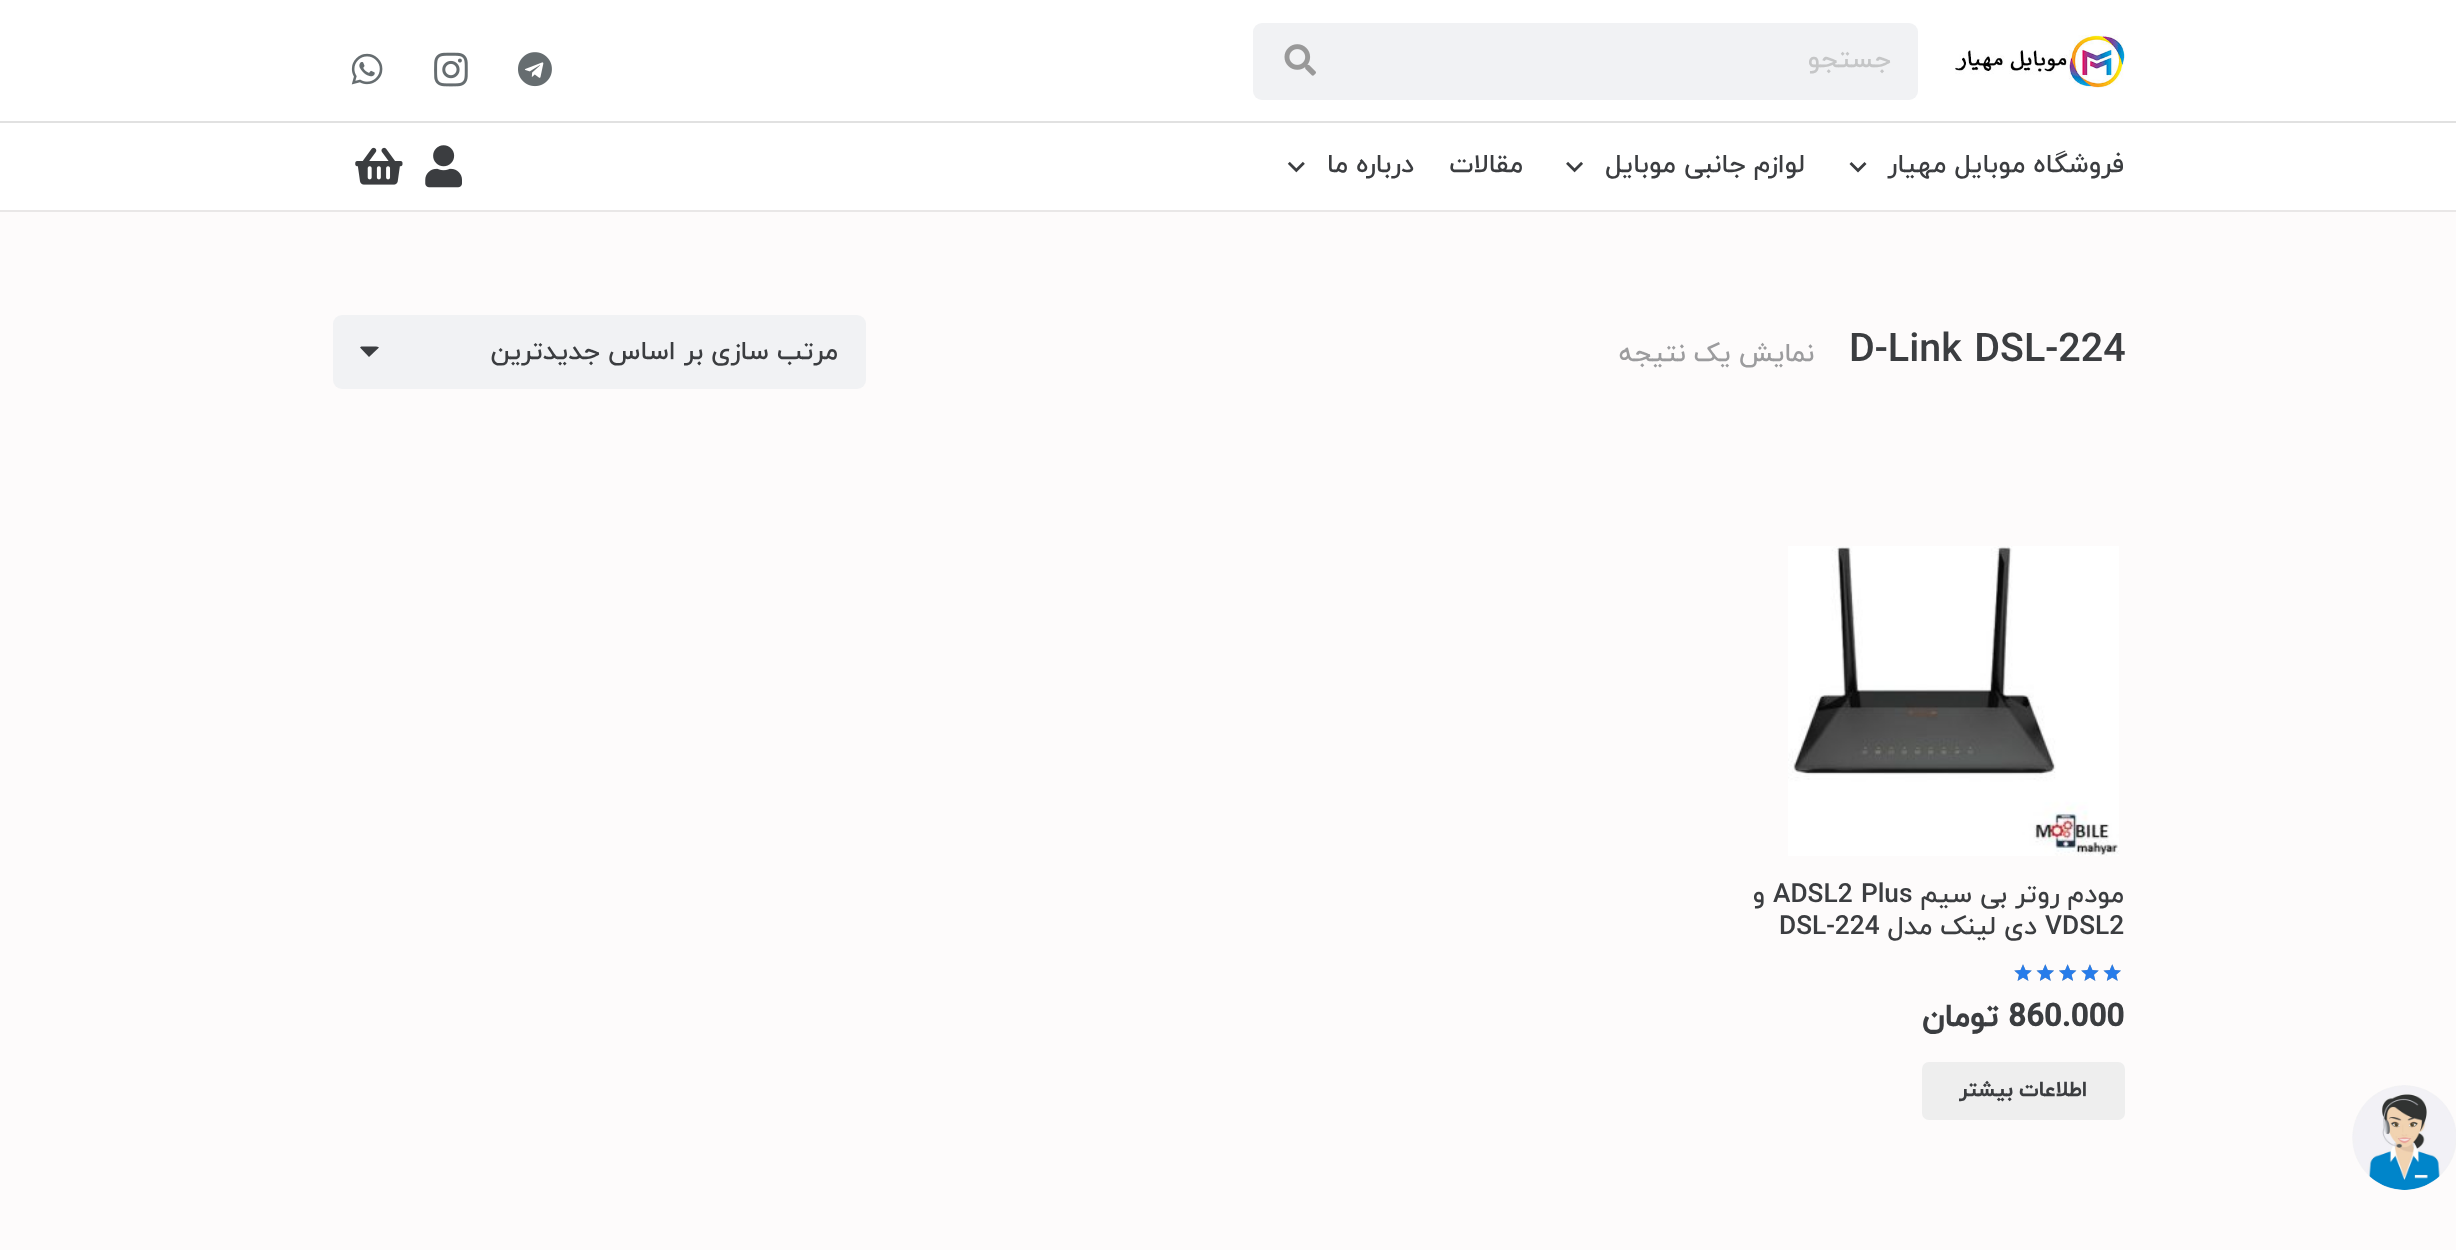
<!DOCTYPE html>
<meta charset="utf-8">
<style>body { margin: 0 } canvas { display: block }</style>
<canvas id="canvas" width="2456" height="1250"></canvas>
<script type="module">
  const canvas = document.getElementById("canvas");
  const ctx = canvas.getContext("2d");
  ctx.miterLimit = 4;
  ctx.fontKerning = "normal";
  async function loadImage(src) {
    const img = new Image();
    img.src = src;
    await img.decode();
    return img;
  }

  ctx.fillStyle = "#fdfbfb";
  ctx.fillRect(0, 0, 2456, 1250);
  ctx.fillStyle = "#ffffff";
  ctx.fillRect(0, 0, 2456, 121);
  ctx.fillStyle = "#e1e1e1";
  ctx.fillRect(0, 121, 2456, 2);
  ctx.drawImage(await loadImage("img1.png"), 1955, 35, 170, 53);
  ctx.fillStyle = "#f1f2f4";
  ctx.beginPath();
  ctx.roundRect(1253, 23, 665, 77, 9);
  ctx.fill();
  ctx.direction = "rtl";
  ctx.font = "500 26.25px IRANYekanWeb";
  ctx.fillStyle = "#c5c6c7";
  ctx.fillText("جستجو", 1891, 67);
  ctx.drawImage(await loadImage("img2.png"), 1284, 44, 32, 32);
  ctx.drawImage(await loadImage("img3.png"), 518, 52, 34, 35);
  ctx.drawImage(await loadImage("img4.png"), 434, 52, 34, 35);
  ctx.drawImage(await loadImage("img5.png"), 351, 53, 32, 32);
  ctx.fillStyle = "#e9e7e7";
  ctx.fillRect(0, 210, 2456, 2);
  ctx.fillStyle = "#ffffff";
  ctx.fillRect(0, 123, 2456, 87);
  ctx.fillStyle = "#3b3d40";
  ctx.fillText("فروشگاه موبایل مهیار", 2124, 172);
  ctx.beginPath();
  ctx.moveTo(1851.5, 162);
  ctx.lineTo(1858, 168.5);
  ctx.lineTo(1864.5, 162);
  ctx.lineTo(1866.5, 164);
  ctx.lineTo(1858, 172.5);
  ctx.lineTo(1849.5, 164);
  ctx.closePath();
  ctx.fill();
  ctx.fillText("لوازم جانبی موبایل", 1805, 172);
  ctx.drawImage(await loadImage("img6.png"), 1566, 161, 17, 12);
  ctx.fillText("مقالات", 1523, 172);
  ctx.fillText("درباره ما", 1414, 172);
  ctx.drawImage(await loadImage("img7.png"), 1287, 161, 18, 12);
  ctx.drawImage(await loadImage("img8.png"), 425, 145, 37, 43);
  ctx.drawImage(await loadImage("img9.png"), 355, 147, 48, 38);
  ctx.direction = "ltr";
  ctx.font = "500 39.5px IRANYekanWeb";
  ctx.fillText("D-Link DSL-224", 1849, 361);
  ctx.direction = "rtl";
  ctx.font = "500 26.25px IRANYekanWeb";
  ctx.fillStyle = "#9c9c9e";
  ctx.fillText("نمایش یک نتیجه", 1814, 361);
  ctx.fillStyle = "#f1f2f4";
  ctx.beginPath();
  ctx.roundRect(333, 315, 533, 74, 9);
  ctx.fill();
  ctx.fillStyle = "#3b3d40";
  ctx.fillText("مرتب سازی بر اساس جدیدترین", 838, 359);
  ctx.beginPath();
  ctx.moveTo(362, 346.5);
  ctx.lineTo(376, 346.5);
  ctx.bezierCurveTo(377, 346.5, 378, 347, 379, 347.5);
  ctx.lineTo(369, 357);
  ctx.lineTo(360, 347.5);
  ctx.bezierCurveTo(360.5, 347, 361, 346.5, 362, 346.5);
  ctx.closePath();
  ctx.fill();
  ctx.drawImage(await loadImage("img10.png"), 1788, 546, 331, 310);
  ctx.fillText("مودم روتر بی سیم", 2124, 902);
  ctx.direction = "ltr";
  ctx.fillText("ADSL2 Plus", 1773, 902);
  ctx.direction = "rtl";
  ctx.fillText("و", 1765, 902);
  ctx.direction = "ltr";
  ctx.fillText("VDSL2", 2045, 934);
  ctx.direction = "rtl";
  ctx.fillText("دی لینک مدل", 2037, 934);
  ctx.direction = "ltr";
  ctx.fillText("DSL-224", 1779, 934);
  ctx.drawImage(await loadImage("img11.png"), 2014, 964, 107, 17);
  ctx.drawImage(await loadImage("img12.png"), 2014, 964, 107, 17);
  ctx.font = "bold 31.5px IRANYekanWeb";
  ctx.fillText("860.000", 2008, 1026);
  ctx.direction = "rtl";
  ctx.fillText("تومان", 1998, 1026);
  ctx.fillStyle = "#eeeeee";
  ctx.beginPath();
  ctx.roundRect(1922, 1062, 203, 58, 7);
  ctx.fill();
  ctx.font = "bold 21px IRANYekanWeb";
  ctx.fillStyle = "#3b3d40";
  ctx.fillText("اطلاعات بیشتر", 2087, 1096);
  ctx.drawImage(await loadImage("img13.png"), 2352, 1085, 104, 105);
</script>
